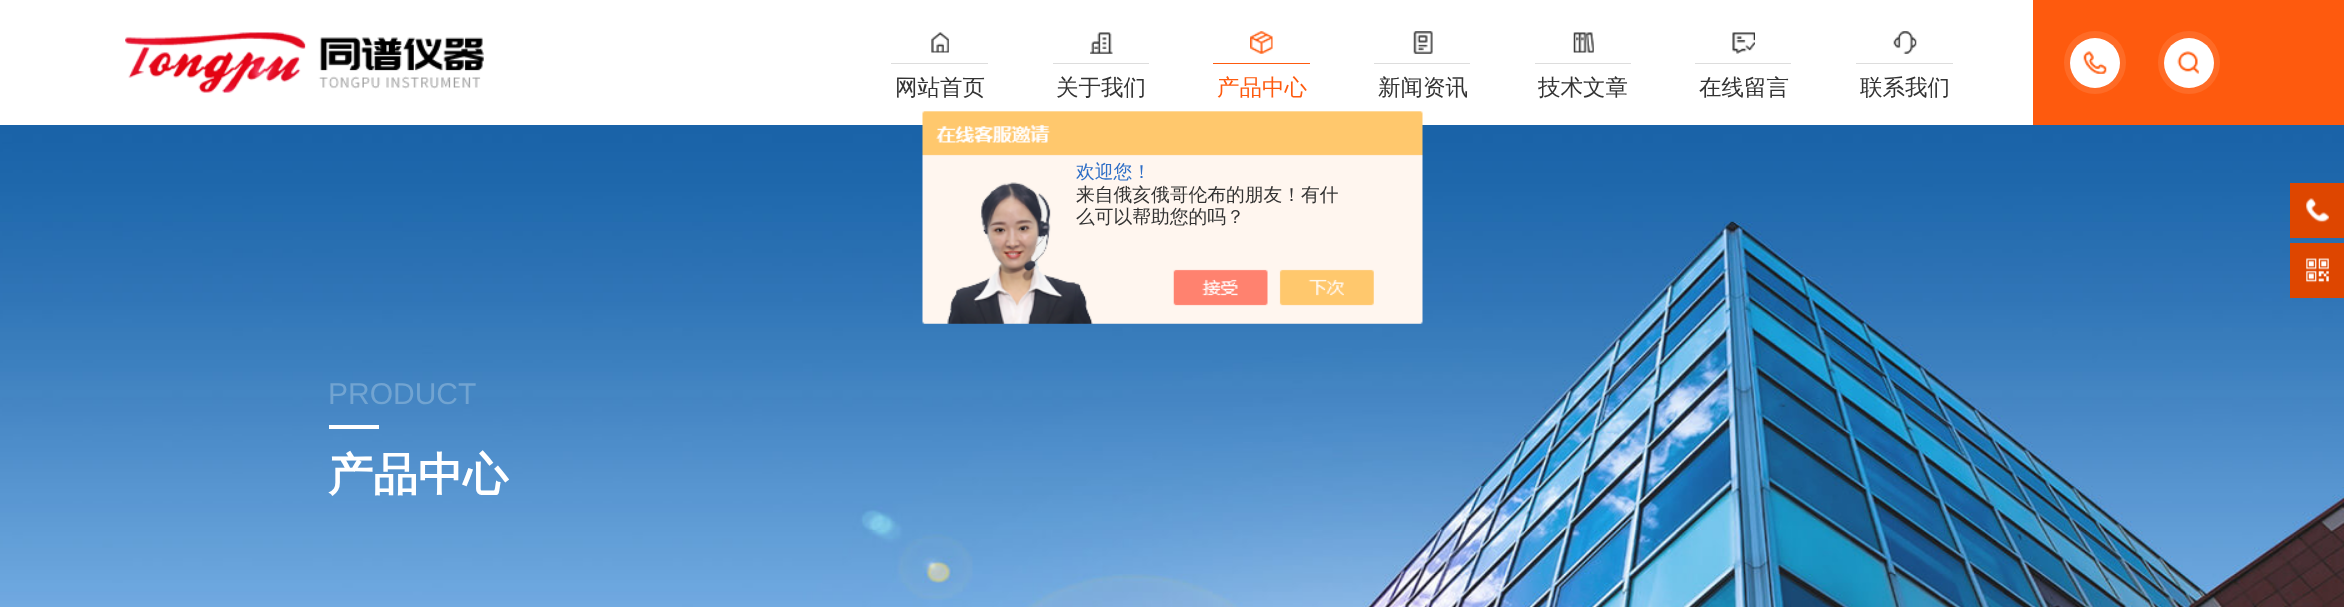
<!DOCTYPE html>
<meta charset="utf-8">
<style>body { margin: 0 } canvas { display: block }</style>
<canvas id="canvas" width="2344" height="607"></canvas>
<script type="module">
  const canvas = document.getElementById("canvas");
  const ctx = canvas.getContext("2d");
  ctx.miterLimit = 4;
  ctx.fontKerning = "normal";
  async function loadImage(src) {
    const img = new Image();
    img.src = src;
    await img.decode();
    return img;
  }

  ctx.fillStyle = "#ffffff";
  ctx.fillRect(0, 0, 2344, 607);
  ctx.drawImage(await loadImage("img1.png"), 125, 32, 359, 61);
  ctx.drawImage(await loadImage("img2.png"), 931, 32, 18, 21);
  ctx.fillStyle = "#dddddd";
  ctx.fillRect(891, 63, 97, 1);
  ctx.font = "500 22.5px WenQuanYi Zen Hei";
  ctx.fillStyle = "#333333";
  ctx.fillText("网站首页", 895, 95);
  ctx.drawImage(await loadImage("img3.png"), 1090, 32, 23, 22);
  ctx.fillStyle = "#dddddd";
  ctx.fillRect(1053, 63, 96, 1);
  ctx.fillStyle = "#333333";
  ctx.fillText("关于我们", 1056, 95);
  ctx.drawImage(await loadImage("img4.png"), 1250, 31, 23, 23);
  ctx.fillStyle = "#fe5a0e";
  ctx.fillRect(1213, 63, 97, 1);
  ctx.fillText("产品中心", 1217, 95);
  ctx.drawImage(await loadImage("img5.png"), 1413, 31, 20, 23);
  ctx.fillStyle = "#dddddd";
  ctx.fillRect(1374, 63, 96, 1);
  ctx.fillStyle = "#333333";
  ctx.fillText("新闻资讯", 1378, 95);
  ctx.drawImage(await loadImage("img6.png"), 1573, 32, 21, 21);
  ctx.fillStyle = "#dddddd";
  ctx.fillRect(1535, 63, 96, 1);
  ctx.fillStyle = "#333333";
  ctx.fillText("技术文章", 1538, 95);
  ctx.drawImage(await loadImage("img7.png"), 1732, 32, 23, 22);
  ctx.fillStyle = "#dddddd";
  ctx.fillRect(1695, 63, 96, 1);
  ctx.fillStyle = "#333333";
  ctx.fillText("在线留言", 1699, 95);
  ctx.drawImage(await loadImage("img8.png"), 1893, 31, 24, 23);
  ctx.fillStyle = "#dddddd";
  ctx.fillRect(1856, 63, 97, 1);
  ctx.fillStyle = "#333333";
  ctx.fillText("联系我们", 1860, 95);
  ctx.fillStyle = "#fe5a0e";
  ctx.fillRect(2033, 0, 311, 125);
  ctx.fillStyle = "#fe6b26";
  ctx.beginPath();
  ctx.roundRect(2064, 31, 62, 63, 31);
  ctx.fill();
  ctx.fillStyle = "#ffffff";
  ctx.beginPath();
  ctx.arc(2095, 63, 25, 0, Math.PI * 2);
  ctx.fill();
  ctx.drawImage(await loadImage("img9.png"), 2083, 51, 24, 23);
  ctx.fillStyle = "#fe6b26";
  ctx.beginPath();
  ctx.roundRect(2158, 31, 62, 63, 31);
  ctx.fill();
  ctx.fillStyle = "#ffffff";
  ctx.beginPath();
  ctx.arc(2189, 63, 25, 0, Math.PI * 2);
  ctx.fill();
  ctx.drawImage(await loadImage("img10.png"), 2177, 51, 22, 23);
  ctx.drawImage(await loadImage("img14.png"), 0, 125, 2344, 482);
  ctx.drawImage(await loadImage("img11.png"), 922, 111, 501, 213);
  ctx.font = "500 18.75px WenQuanYi Zen Hei";
  ctx.fillStyle = "#2e6ec6";
  ctx.fillText("欢迎您！", 1076, 178);
  ctx.fillStyle = "#333333";
  ctx.fillText("来自俄亥俄哥伦布的朋友！有什", 1076, 201);
  ctx.fillText("么可以帮助您的吗？", 1076, 223);
  ctx.fillStyle = "#de4600";
  ctx.fillRect(2290, 183, 54, 55);
  ctx.drawImage(await loadImage("img12.png"), 2306, 198, 23, 25);
  ctx.fillRect(2290, 243, 54, 55);
  ctx.drawImage(await loadImage("img13.png"), 2306, 258, 23, 25);
  ctx.font = "30px Liberation Sans";
  ctx.fillStyle = "#72a4d1";
  ctx.fillText("PRODUCT", 328, 404);
  ctx.fillStyle = "#ffffff";
  ctx.fillRect(329, 425, 50, 4);
  ctx.font = "bold 45px WenQuanYi Zen Hei";
  ctx.fillText("产品中心", 328, 490);
</script>
